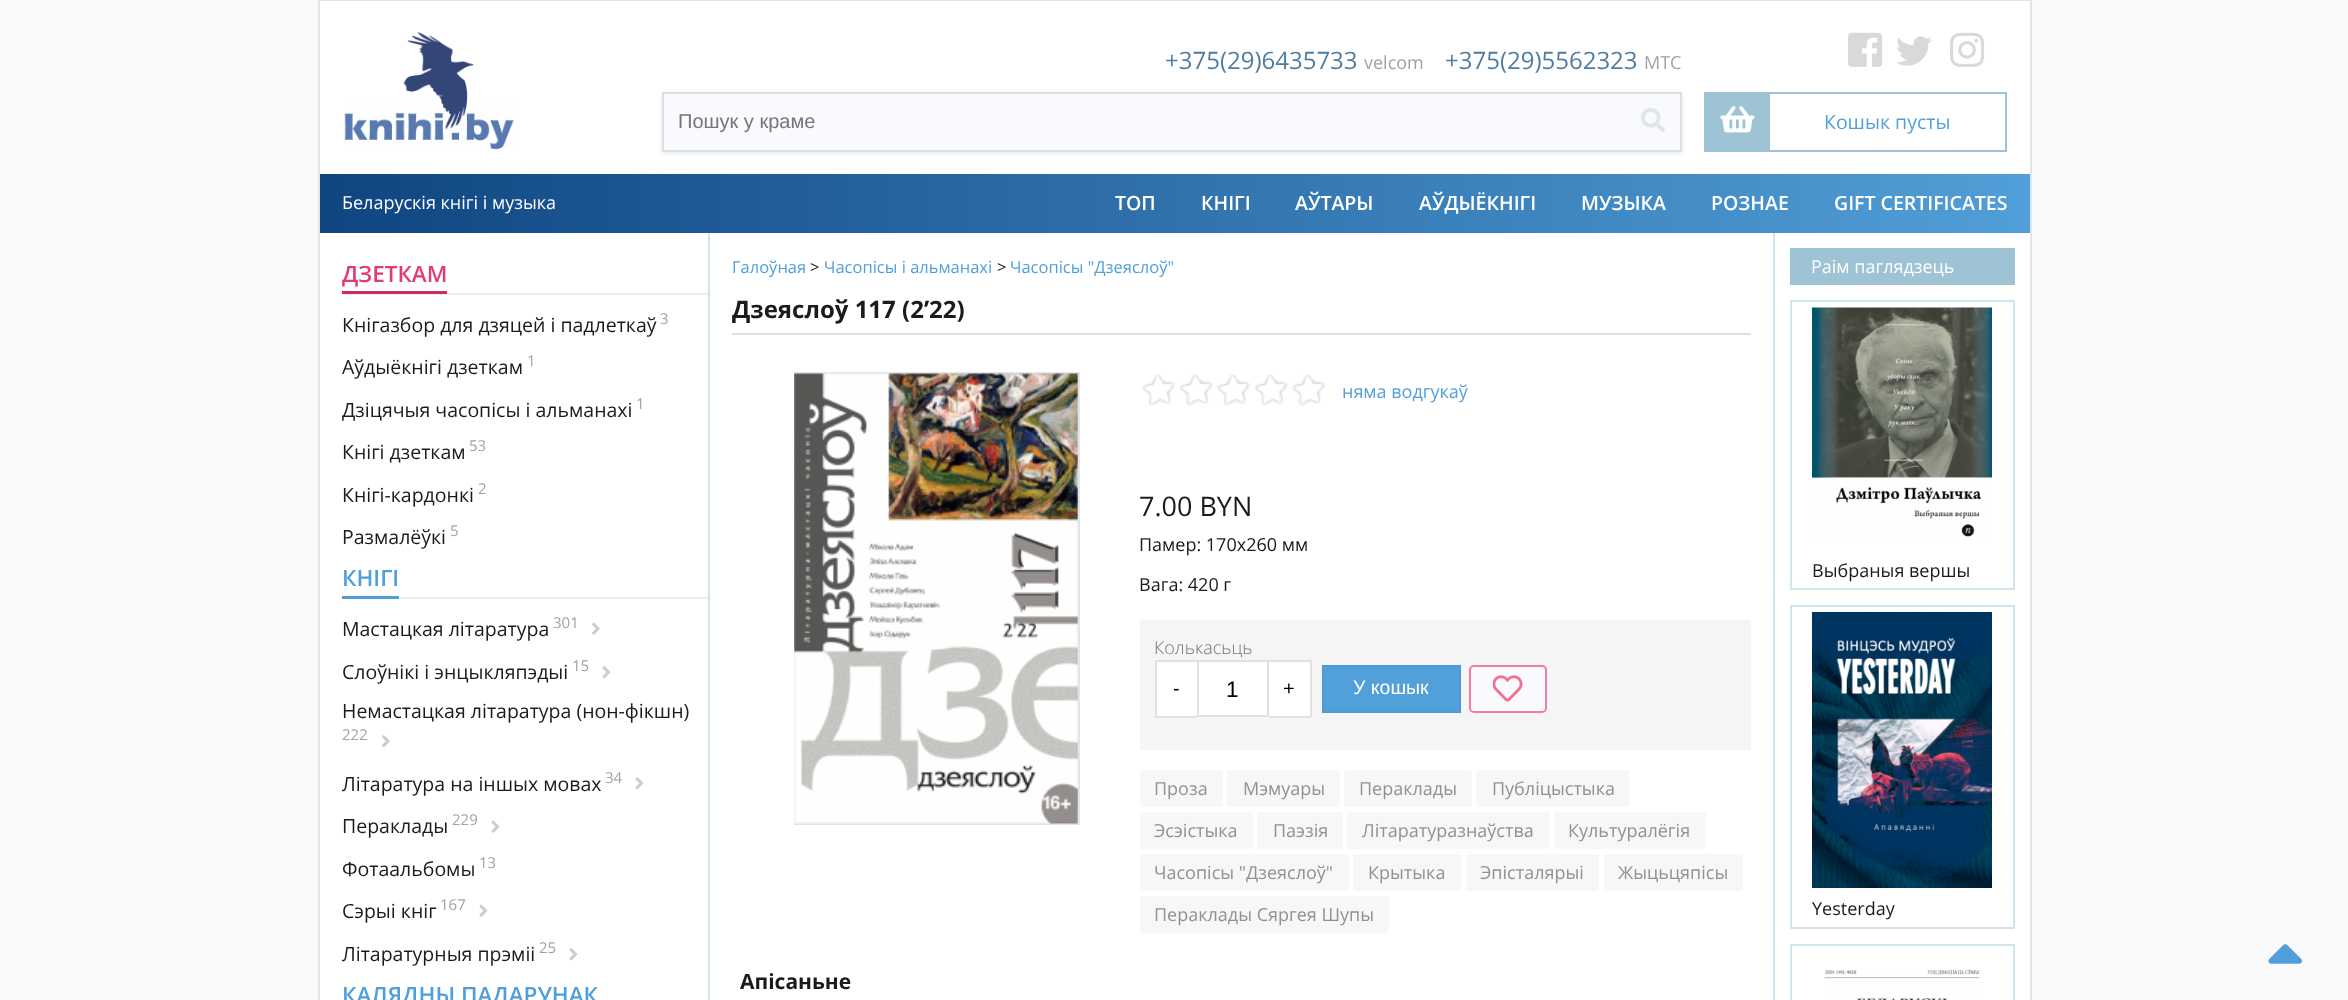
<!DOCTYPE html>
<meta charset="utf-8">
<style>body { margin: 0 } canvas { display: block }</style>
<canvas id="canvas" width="2348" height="1000"></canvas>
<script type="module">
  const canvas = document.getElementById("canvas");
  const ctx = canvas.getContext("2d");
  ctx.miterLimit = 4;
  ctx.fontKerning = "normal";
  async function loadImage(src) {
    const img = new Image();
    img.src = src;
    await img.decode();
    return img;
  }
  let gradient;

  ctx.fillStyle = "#f9f9f9";
  ctx.fillRect(0, 0, 2348, 1000);
  ctx.fillStyle = "#ffffff";
  ctx.fillRect(320, 1, 1710, 999);
  ctx.fillStyle = "#e1e4ea";
  ctx.fillRect(2030, 0, 2, 1000);
  ctx.fillRect(318, 0, 2, 1000);
  ctx.fillRect(320, 0, 1710, 1);
  ctx.drawImage(await loadImage("img1.png"), 344, 32, 170, 118);
  ctx.font = "24px Open Sans";
  ctx.fillStyle = "#4f7ca3";
  ctx.fillText("+375(29)6435733", 1165, 69);
  ctx.font = "18px Open Sans";
  ctx.fillStyle = "#a2a2a7";
  ctx.fillText("velcom", 1364, 69);
  ctx.font = "24px Open Sans";
  ctx.fillStyle = "#4f7ca3";
  ctx.fillText("+375(29)5562323", 1445, 69);
  ctx.font = "18px Open Sans";
  ctx.fillStyle = "#a2a2a7";
  ctx.fillText("MTC", 1644, 69);
  ctx.fillStyle = "rgba(45, 110, 164, 0.05)";
  ctx.filter = "blur(2px)";
  ctx.beginPath();
  ctx.rect(662, 96, 1020, 60);
  ctx.fill();
  ctx.filter = "none";
  ctx.fillStyle = "rgba(45, 110, 164, 0.1)";
  ctx.filter = "blur(2px)";
  ctx.beginPath();
  ctx.rect(662, 92, 1020, 60);
  ctx.fill();
  ctx.filter = "none";
  ctx.fillStyle = "#f9fafd";
  ctx.beginPath();
  ctx.rect(663, 93, 1018, 58);
  ctx.fill();
  ctx.strokeStyle = "#dfdfdf";
  ctx.lineWidth = 2;
  ctx.stroke();
  ctx.font = "20px Liberation Sans";
  ctx.fillStyle = "#757575";
  ctx.fillText("Пошук у краме", 678, 128);
  ctx.drawImage(await loadImage("img2.png"), 1641, 108, 24, 24);
  ctx.drawImage(await loadImage("img3.png"), 1848, 32, 35, 35);
  ctx.drawImage(await loadImage("img4.png"), 1896, 36, 36, 30);
  ctx.drawImage(await loadImage("img5.png"), 1950, 32, 35, 35);
  ctx.strokeStyle = "#9dc3d4";
  ctx.strokeRect(1705, 93, 301, 58);
  ctx.fillStyle = "#9dc3d4";
  ctx.fillRect(1706, 94, 64, 56);
  ctx.drawImage(await loadImage("img6.png"), 1720, 106, 35, 27);
  ctx.font = "19.5px Open Sans";
  ctx.fillStyle = "#519fd8";
  ctx.fillText("Кошык пусты", 1824, 129);
  gradient = ctx.createLinearGradient(320, 203, 2030, 203);
  gradient.addColorStop(0, "#0f4581");
  gradient.addColorStop(1, "#519fd8");
  ctx.fillStyle = gradient;
  ctx.fillRect(320, 174, 1710, 59);
  ctx.font = "18px Open Sans";
  ctx.fillStyle = "#ffffff";
  ctx.fillText("Беларускія кнігі і музыка", 342, 209);
  ctx.font = "600 19.5px Open Sans";
  ctx.fillText("ТОП", 1115, 210);
  ctx.fillText("КНІГІ", 1201, 210);
  ctx.fillText("АЎТАРЫ", 1295, 210);
  ctx.fillText("АЎДЫЁКНІГІ", 1419, 210);
  ctx.fillText("МУЗЫКА", 1581, 210);
  ctx.fillText("РОЗНАЕ", 1711, 210);
  ctx.fillText("GIFT CERTIFICATES", 1834, 210);
  ctx.fillStyle = "#d1e4ec";
  ctx.fillRect(708, 233, 2, 767);
  ctx.fillStyle = "#e9edf0";
  ctx.fillRect(342, 293, 366, 2);
  ctx.fillStyle = "#d02a63";
  ctx.fillRect(342, 291, 105, 3);
  ctx.font = "600 22.5px Open Sans";
  ctx.fillStyle = "#e13b74";
  ctx.fillText("ДЗЕТКАМ", 342, 282);
  ctx.font = "19.5px Open Sans";
  ctx.fillStyle = "#1a1b1b";
  ctx.fillText("Кнігазбор для дзяцей і падлеткаў", 342, 332);
  ctx.font = "15px Open Sans";
  ctx.fillStyle = "#a2a2a7";
  ctx.fillText("3", 660, 324);
  ctx.font = "19.5px Open Sans";
  ctx.fillStyle = "#1a1b1b";
  ctx.fillText("Аўдыёкнігі дзеткам", 342, 374);
  ctx.font = "15px Open Sans";
  ctx.fillStyle = "#a2a2a7";
  ctx.fillText("1", 527, 366);
  ctx.font = "19.5px Open Sans";
  ctx.fillStyle = "#1a1b1b";
  ctx.fillText("Дзіцячыя часопісы і альманахі", 342, 417);
  ctx.font = "15px Open Sans";
  ctx.fillStyle = "#a2a2a7";
  ctx.fillText("1", 636, 409);
  ctx.font = "19.5px Open Sans";
  ctx.fillStyle = "#1a1b1b";
  ctx.fillText("Кнігі дзеткам", 342, 459);
  ctx.font = "15px Open Sans";
  ctx.fillStyle = "#a2a2a7";
  ctx.fillText("53", 469, 451);
  ctx.font = "19.5px Open Sans";
  ctx.fillStyle = "#1a1b1b";
  ctx.fillText("Кнігі-кардонкі", 342, 502);
  ctx.font = "15px Open Sans";
  ctx.fillStyle = "#a2a2a7";
  ctx.fillText("2", 478, 494);
  ctx.font = "19.5px Open Sans";
  ctx.fillStyle = "#1a1b1b";
  ctx.fillText("Размалёўкі", 342, 544);
  ctx.font = "15px Open Sans";
  ctx.fillStyle = "#a2a2a7";
  ctx.fillText("5", 450, 536);
  ctx.fillStyle = "#e9edf0";
  ctx.fillRect(399, 597, 309, 2);
  ctx.fillStyle = "#519fd8";
  ctx.fillRect(342, 596, 57, 3);
  ctx.font = "600 22.5px Open Sans";
  ctx.fillText("КНІГІ", 342, 586);
  ctx.font = "19.5px Open Sans";
  ctx.fillStyle = "#1a1b1b";
  ctx.fillText("Мастацкая літаратура", 342, 636);
  ctx.font = "15px Open Sans";
  ctx.fillStyle = "#a2a2a7";
  ctx.fillText("301", 553, 628);
  ctx.drawImage(await loadImage("img7.png"), 592, 622, 8, 13);
  ctx.font = "19.5px Open Sans";
  ctx.fillStyle = "#1a1b1b";
  ctx.fillText("Cлоўнікі і энцыкляпэдыі", 342, 679);
  ctx.font = "15px Open Sans";
  ctx.fillStyle = "#a2a2a7";
  ctx.fillText("15", 572, 671);
  ctx.drawImage(await loadImage("img8.png"), 602, 666, 9, 13);
  ctx.font = "19.5px Open Sans";
  ctx.fillStyle = "#1a1b1b";
  ctx.fillText("Немастацкая літаратура (нон-фікшн)", 342, 718);
  ctx.font = "15px Open Sans";
  ctx.fillStyle = "#a2a2a7";
  ctx.fillText("222", 342, 740);
  ctx.drawImage(await loadImage("img9.png"), 382, 735, 8, 13);
  ctx.font = "19.5px Open Sans";
  ctx.fillStyle = "#1a1b1b";
  ctx.fillText("Літаратура на іншых мовах", 342, 791);
  ctx.font = "15px Open Sans";
  ctx.fillStyle = "#a2a2a7";
  ctx.fillText("34", 605, 783);
  ctx.drawImage(await loadImage("img8.png"), 635, 777, 9, 13);
  ctx.font = "19.5px Open Sans";
  ctx.fillStyle = "#1a1b1b";
  ctx.fillText("Пераклады", 342, 833);
  ctx.font = "15px Open Sans";
  ctx.fillStyle = "#a2a2a7";
  ctx.fillText("229", 452, 825);
  ctx.drawImage(await loadImage("img10.png"), 491, 820, 9, 13);
  ctx.font = "19.5px Open Sans";
  ctx.fillStyle = "#1a1b1b";
  ctx.fillText("Фотаальбомы", 342, 876);
  ctx.font = "15px Open Sans";
  ctx.fillStyle = "#a2a2a7";
  ctx.fillText("13", 479, 868);
  ctx.font = "19.5px Open Sans";
  ctx.fillStyle = "#1a1b1b";
  ctx.fillText("Сэрыі кніг", 342, 918);
  ctx.font = "15px Open Sans";
  ctx.fillStyle = "#a2a2a7";
  ctx.fillText("167", 440, 910);
  ctx.drawImage(await loadImage("img10.png"), 479, 904, 9, 13);
  ctx.font = "19.5px Open Sans";
  ctx.fillStyle = "#1a1b1b";
  ctx.fillText("Літаратурныя прэміі", 342, 961);
  ctx.font = "15px Open Sans";
  ctx.fillStyle = "#a2a2a7";
  ctx.fillText("25", 539, 953);
  ctx.drawImage(await loadImage("img8.png"), 569, 948, 9, 13);
  ctx.font = "600 22.5px Open Sans";
  ctx.fillStyle = "#519fd8";
  ctx.fillText("КАЛЯДНЫ ПАДАРУНАК", 342, 1003);
  ctx.font = "16.5px Open Sans";
  ctx.fillText("Галоўная", 732, 273);
  ctx.fillStyle = "#1a1b1b";
  ctx.fillText(">", 810, 273);
  ctx.fillStyle = "#519fd8";
  ctx.fillText("Часопісы і альманахі", 824, 273);
  ctx.fillStyle = "#1a1b1b";
  ctx.fillText(">", 997, 273);
  ctx.fillStyle = "#519fd8";
  ctx.fillText("Часопісы \"Дзеяслоў\"", 1010, 273);
  ctx.fillStyle = "#dfdfdf";
  ctx.fillRect(732, 333, 1019, 2);
  ctx.font = "bold 24px Open Sans";
  ctx.fillStyle = "#1a1b1b";
  ctx.fillText("Дзеяслоў 117 (2ʼ22)", 732, 318);
  ctx.strokeStyle = "#e1e4ea";
  ctx.strokeRect(795, 373, 284, 451);
  ctx.drawImage(await loadImage("img11.png"), 794, 373, 284, 451);
  ctx.drawImage(await loadImage("img12.png"), 1142, 374, 184, 32);
  ctx.font = "18px Open Sans";
  ctx.fillStyle = "#519fd8";
  ctx.fillText("няма водгукаў", 1342, 398);
  ctx.font = "27px Open Sans";
  ctx.fillStyle = "#1a1b1b";
  ctx.fillText("7.00 BYN", 1139, 516);
  ctx.font = "18px Open Sans";
  ctx.fillText("Памер: 170x260 мм", 1139, 551);
  ctx.fillText("Вага: 420 г", 1139, 591);
  ctx.fillStyle = "#f5f5f5";
  ctx.fillRect(1140, 620, 611, 130);
  ctx.font = "300 18px Open Sans";
  ctx.fillStyle = "#757575";
  ctx.fillText("Колькасьць", 1154, 654);
  ctx.fillStyle = "#ffffff";
  ctx.fillRect(1157, 662, 40, 54);
  ctx.fillStyle = "#e1e1e1";
  ctx.fillRect(1155, 660, 42, 2);
  ctx.fillRect(1155, 716, 42, 2);
  ctx.fillRect(1155, 660, 2, 57);
  ctx.font = "20px Liberation Sans";
  ctx.fillStyle = "#000000";
  ctx.fillText("-", 1173, 695);
  ctx.fillStyle = "#ffffff";
  ctx.beginPath();
  ctx.rect(1198, 661, 70, 55);
  ctx.fill();
  ctx.strokeStyle = "#e1e1e1";
  ctx.stroke();
  ctx.font = "22.5px Liberation Sans";
  ctx.fillStyle = "#000000";
  ctx.fillText("1", 1226, 697);
  ctx.fillStyle = "#ffffff";
  ctx.fillRect(1269, 662, 41, 54);
  ctx.fillStyle = "#e1e1e1";
  ctx.fillRect(1269, 660, 42, 2);
  ctx.fillRect(1310, 660, 2, 57);
  ctx.fillRect(1269, 716, 42, 2);
  ctx.font = "20px Liberation Sans";
  ctx.fillStyle = "#000000";
  ctx.fillText("+", 1283, 695);
  ctx.fillStyle = "#52a0d9";
  ctx.beginPath();
  ctx.rect(1323, 666, 137, 46);
  ctx.fill();
  ctx.strokeStyle = "#4d9bd4";
  ctx.stroke();
  ctx.font = "19.5px Liberation Sans";
  ctx.fillStyle = "#ffffff";
  ctx.fillText("У кошык", 1353, 694);
  ctx.fillStyle = "#f9fafd";
  ctx.beginPath();
  ctx.roundRect(1470, 666, 76, 46, 4);
  ctx.fill();
  ctx.strokeStyle = "#f47ba5";
  ctx.stroke();
  ctx.drawImage(await loadImage("img13.png"), 1493, 675, 30, 27);
  ctx.fillStyle = "#f7f7f7";
  ctx.beginPath();
  ctx.roundRect(1140, 770, 83, 37, 3);
  ctx.fill();
  ctx.font = "18px Open Sans";
  ctx.fillStyle = "#919191";
  ctx.fillText("Проза", 1154, 795);
  ctx.fillStyle = "#f7f7f7";
  ctx.beginPath();
  ctx.roundRect(1227, 770, 113, 37, 3);
  ctx.fill();
  ctx.fillStyle = "#919191";
  ctx.fillText("Мэмуары", 1243, 795);
  ctx.fillStyle = "#f7f7f7";
  ctx.beginPath();
  ctx.roundRect(1344, 770, 128, 37, 3);
  ctx.fill();
  ctx.fillStyle = "#919191";
  ctx.fillText("Пераклады", 1359, 795);
  ctx.fillStyle = "#f7f7f7";
  ctx.beginPath();
  ctx.roundRect(1476, 770, 153, 37, 3);
  ctx.fill();
  ctx.fillStyle = "#919191";
  ctx.fillText("Публіцыстыка", 1492, 795);
  ctx.fillStyle = "#f7f7f7";
  ctx.beginPath();
  ctx.roundRect(1140, 812, 113, 37, 3);
  ctx.fill();
  ctx.fillStyle = "#919191";
  ctx.fillText("Эсэістыка", 1154, 837);
  ctx.fillStyle = "#f7f7f7";
  ctx.beginPath();
  ctx.roundRect(1257, 812, 86, 37, 3);
  ctx.fill();
  ctx.fillStyle = "#919191";
  ctx.fillText("Паэзія", 1273, 837);
  ctx.fillStyle = "#f7f7f7";
  ctx.beginPath();
  ctx.roundRect(1347, 812, 203, 37, 3);
  ctx.fill();
  ctx.fillStyle = "#919191";
  ctx.fillText("Літаратуразнаўства", 1362, 837);
  ctx.fillStyle = "#f7f7f7";
  ctx.beginPath();
  ctx.roundRect(1554, 812, 152, 37, 3);
  ctx.fill();
  ctx.fillStyle = "#919191";
  ctx.fillText("Культуралёгія", 1568, 837);
  ctx.fillStyle = "#f7f7f7";
  ctx.beginPath();
  ctx.roundRect(1140, 854, 209, 37, 3);
  ctx.fill();
  ctx.fillStyle = "#919191";
  ctx.fillText("Часопісы \"Дзеяслоў\"", 1154, 879);
  ctx.fillStyle = "#f7f7f7";
  ctx.beginPath();
  ctx.roundRect(1353, 854, 108, 37, 3);
  ctx.fill();
  ctx.fillStyle = "#919191";
  ctx.fillText("Крытыка", 1368, 879);
  ctx.fillStyle = "#f7f7f7";
  ctx.beginPath();
  ctx.roundRect(1466, 854, 133, 37, 3);
  ctx.fill();
  ctx.fillStyle = "#919191";
  ctx.fillText("Эпісталярыі", 1480, 879);
  ctx.fillStyle = "#f7f7f7";
  ctx.beginPath();
  ctx.roundRect(1604, 854, 139, 37, 3);
  ctx.fill();
  ctx.fillStyle = "#919191";
  ctx.fillText("Жыцьцяпісы", 1618, 879);
  ctx.fillStyle = "#f7f7f7";
  ctx.beginPath();
  ctx.roundRect(1140, 896, 249, 37, 3);
  ctx.fill();
  ctx.fillStyle = "#919191";
  ctx.fillText("Пераклады Сяргея Шупы", 1154, 921);
  ctx.font = "bold 21px Open Sans";
  ctx.fillStyle = "#1a1b1b";
  ctx.fillText("Апісаньне", 740, 989);
  ctx.fillStyle = "#d1e4ec";
  ctx.fillRect(1773, 233, 2, 767);
  ctx.fillStyle = "#9dc3d4";
  ctx.fillRect(1790, 248, 225, 37);
  ctx.font = "18px Open Sans";
  ctx.fillStyle = "#ffffff";
  ctx.fillText("Раім паглядзець", 1811, 273);
  ctx.strokeStyle = "#d1e4ec";
  ctx.strokeRect(1791, 301, 223, 288);
  ctx.drawImage(await loadImage("img14.png"), 1812, 307, 180, 230);
  ctx.fillStyle = "#1a1b1b";
  ctx.fillText("Выбраныя вершы", 1812, 577);
  ctx.strokeRect(1791, 606, 223, 322);
  ctx.drawImage(await loadImage("img15.png"), 1812, 612, 180, 276);
  ctx.fillText("Yesterday", 1812, 915);
  ctx.strokeRect(1791, 945, 223, 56);
  ctx.drawImage(await loadImage("img16.png"), 1824, 969, 156, 31);
  ctx.drawImage(await loadImage("img17.png"), 2268, 944, 34, 20);
</script>
